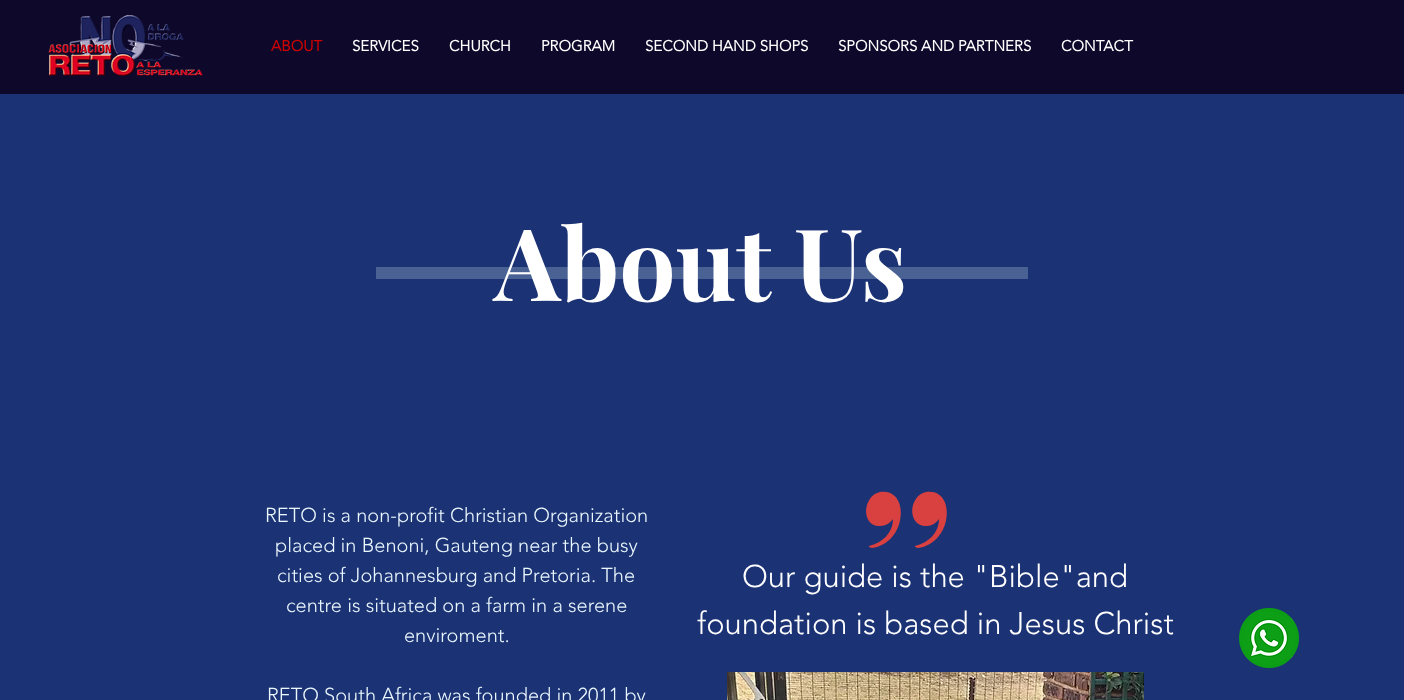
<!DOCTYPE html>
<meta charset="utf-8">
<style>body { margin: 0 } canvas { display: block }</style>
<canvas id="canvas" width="1404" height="700"></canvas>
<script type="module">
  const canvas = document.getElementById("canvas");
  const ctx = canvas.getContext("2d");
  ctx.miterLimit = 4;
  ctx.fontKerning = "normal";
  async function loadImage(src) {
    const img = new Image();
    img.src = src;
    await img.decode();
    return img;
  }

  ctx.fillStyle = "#0e092b";
  ctx.fillRect(0, 0, 1404, 700);
  ctx.drawImage(await loadImage("img1.png"), 48, 15, 155, 61);
  ctx.font = "bold 15px 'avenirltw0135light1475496'";
  ctx.fillStyle = "#cc0000";
  ctx.fillText("ABOUT", 271, 51);
  ctx.fillStyle = "#ffffff";
  ctx.fillText("SERVICES", 352, 51);
  ctx.fillText("CHURCH", 449, 51);
  ctx.fillText("PROGRAM", 541, 51);
  ctx.fillText("SECOND HAND SHOPS", 645, 51);
  ctx.fillText("SPONSORS AND PARTNERS", 838, 51);
  ctx.fillText("CONTACT", 1061, 51);
  ctx.fillStyle = "#1b3274";
  ctx.fillRect(0, 94, 1404, 606);
  ctx.fillStyle = "#4a6194";
  ctx.fillRect(376, 267, 652, 12);
  ctx.font = "bold 100px Playfair Display";
  ctx.fillStyle = "#ffffff";
  ctx.fillText("About Us", 494, 301);
  ctx.font = "300 20px 'avenirltw0135light1475496'";
  ctx.fillStyle = "#eaf7fd";
  ctx.fillText("RETO is a non-profit Christian Organization", 265, 522);
  ctx.fillText("placed in Benoni, Gauteng near the busy", 275, 552);
  ctx.fillText("cities of Johannesburg and Pretoria. The", 277, 582);
  ctx.fillText("centre is situated on a farm in a serene", 286, 612);
  ctx.fillText("enviroment.", 404, 642);
  ctx.fillText("RETO South Africa was founded in 2011 by", 267, 702);
  ctx.fillStyle = "#d94141";
  ctx.beginPath();
  ctx.moveTo(869, 547);
  ctx.lineTo(869, 546);
  ctx.bezierCurveTo(882, 543, 893, 533, 893, 519);
  ctx.bezierCurveTo(890, 523, 886, 526, 880, 526);
  ctx.bezierCurveTo(861, 527, 862, 496, 880, 492);
  ctx.bezierCurveTo(910, 487, 908, 543, 872, 548);
  ctx.closePath();
  ctx.fill();
  ctx.beginPath();
  ctx.moveTo(915, 547);
  ctx.lineTo(915, 546);
  ctx.bezierCurveTo(928, 543, 939, 533, 939, 519);
  ctx.bezierCurveTo(936, 523, 932, 526, 927, 526);
  ctx.bezierCurveTo(907, 527, 908, 496, 926, 492);
  ctx.bezierCurveTo(956, 487, 954, 543, 918, 548);
  ctx.closePath();
  ctx.fill();
  ctx.font = "300 31px 'avenirltw0135light1475496'";
  ctx.fillStyle = "#ffffff";
  ctx.fillText("Our guide is the \"Bible\"and", 742, 587);
  ctx.fillText("foundation is based in Jesus Christ", 697, 634);
  ctx.drawImage(await loadImage("img2.png"), 727, 672, 417, 28);
  ctx.drawImage(await loadImage("img3.png"), 1239, 608, 60, 60);
</script>
